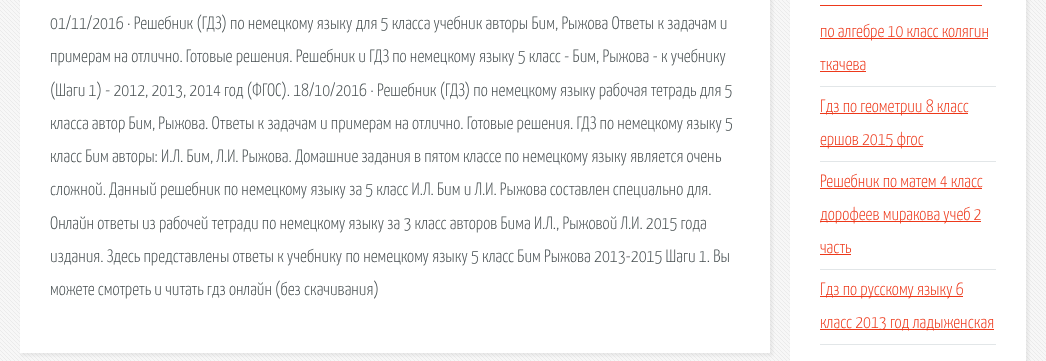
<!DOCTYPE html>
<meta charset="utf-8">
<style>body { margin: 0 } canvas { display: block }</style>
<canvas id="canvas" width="1046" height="361"></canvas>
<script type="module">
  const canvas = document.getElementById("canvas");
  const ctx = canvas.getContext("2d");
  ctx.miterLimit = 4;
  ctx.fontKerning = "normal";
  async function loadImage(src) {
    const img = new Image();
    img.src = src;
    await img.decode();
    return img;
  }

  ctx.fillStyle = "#f7f7f7";
  ctx.fillRect(0, 0, 1046, 361);
  ctx.drawImage(await loadImage("img1.png"), 0, 0, 1046, 361);
  ctx.fillStyle = "rgba(128, 128, 128, 0.1)";
  ctx.filter = "blur(1px)";
  ctx.beginPath();
  ctx.rect(21, -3, 752, 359);
  ctx.fill();
  ctx.filter = "none";
  ctx.fillStyle = "#ffffff";
  ctx.fillRect(20, 0, 750, 353);
  ctx.font = "300 18px Yanone Kaffeesatz";
  ctx.fillStyle = "#474f51";
  ctx.fillText("01/11/2016 · Решебник (ГДЗ) по немецкому языку для 5 класса учебник авторы Бим, Рыжова Ответы к задачам и", 50, 29);
  ctx.fillText("примерам на отлично. Готовые решения. Решебник и ГДЗ по немецкому языку 5 класс - Бим, Рыжова - к учебнику", 50, 62);
  ctx.fillText("(Шаги 1) - 2012, 2013, 2014 год (ФГОС). 18/10/2016 · Решебник (ГДЗ) по немецкому языку рабочая тетрадь для 5", 50, 96);
  ctx.fillText("класса автор Бим, Рыжова. Ответы к задачам и примерам на отлично. Готовые решения. ГДЗ по немецкому языку 5", 50, 129);
  ctx.fillText("класс Бим авторы: И.Л. Бим, Л.И. Рыжова. Домашние задания в пятом классе по немецкому языку является очень", 50, 162);
  ctx.fillText("сложной. Данный решебник по немецкому языку за 5 класс И.Л. Бим и Л.И. Рыжова составлен специально для.", 50, 195);
  ctx.fillText("Онлайн ответы из рабочей тетради по немецкому языку за 3 класс авторов Бима И.Л., Рыжовой Л.И. 2015 года", 50, 229);
  ctx.fillText("издания. Здесь представлены ответы к учебнику по немецкому языку 5 класс Бим Рыжова 2013-2015 Шаги 1. Вы", 50, 262);
  ctx.fillText("можете смотреть и читать гдз онлайн (без скачивания)", 50, 295);
  ctx.fillStyle = "rgba(128, 128, 128, 0.1)";
  ctx.filter = "blur(1px)";
  ctx.beginPath();
  ctx.rect(791, -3, 238, 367);
  ctx.fill();
  ctx.filter = "none";
  ctx.fillStyle = "#ffffff";
  ctx.fillRect(790, 0, 236, 361);
  ctx.fillStyle = "#e2e6e8";
  ctx.fillRect(820, 86, 176, 1);
  ctx.fillStyle = "#ed391b";
  ctx.fillRect(820, 38, 168, 1);
  ctx.fillText("по алгебре 10 класс колягин", 820, 37);
  ctx.fillRect(820, 5, 162, 1);
  ctx.fillText("ткачева", 820, 70);
  ctx.fillRect(820, 71, 46, 1);
  ctx.fillStyle = "#e2e6e8";
  ctx.fillRect(820, 161, 176, 1);
  ctx.fillStyle = "#ed391b";
  ctx.fillRect(820, 113, 148, 1);
  ctx.fillText("Гдз по геометрии 8 класс", 820, 112);
  ctx.fillRect(820, 146, 103, 1);
  ctx.fillText("ершов 2015 фгос", 820, 145);
  ctx.fillStyle = "#e2e6e8";
  ctx.fillRect(820, 269, 176, 1);
  ctx.fillStyle = "#ed391b";
  ctx.fillText("Решебник по матем 4 класс", 820, 187);
  ctx.fillRect(820, 188, 162, 1);
  ctx.fillRect(820, 221, 161, 1);
  ctx.fillText("дорофеев миракова учеб 2", 820, 220);
  ctx.fillText("часть", 820, 253);
  ctx.fillRect(820, 254, 31, 1);
  ctx.fillStyle = "#e2e6e8";
  ctx.fillRect(820, 344, 176, 1);
  ctx.fillStyle = "#ed391b";
  ctx.fillRect(820, 296, 143, 1);
  ctx.fillText("Гдз по русскому языку 6", 820, 295);
  ctx.fillRect(820, 329, 174, 1);
  ctx.fillText("класс 2013 год ладыженская", 820, 328);
</script>
